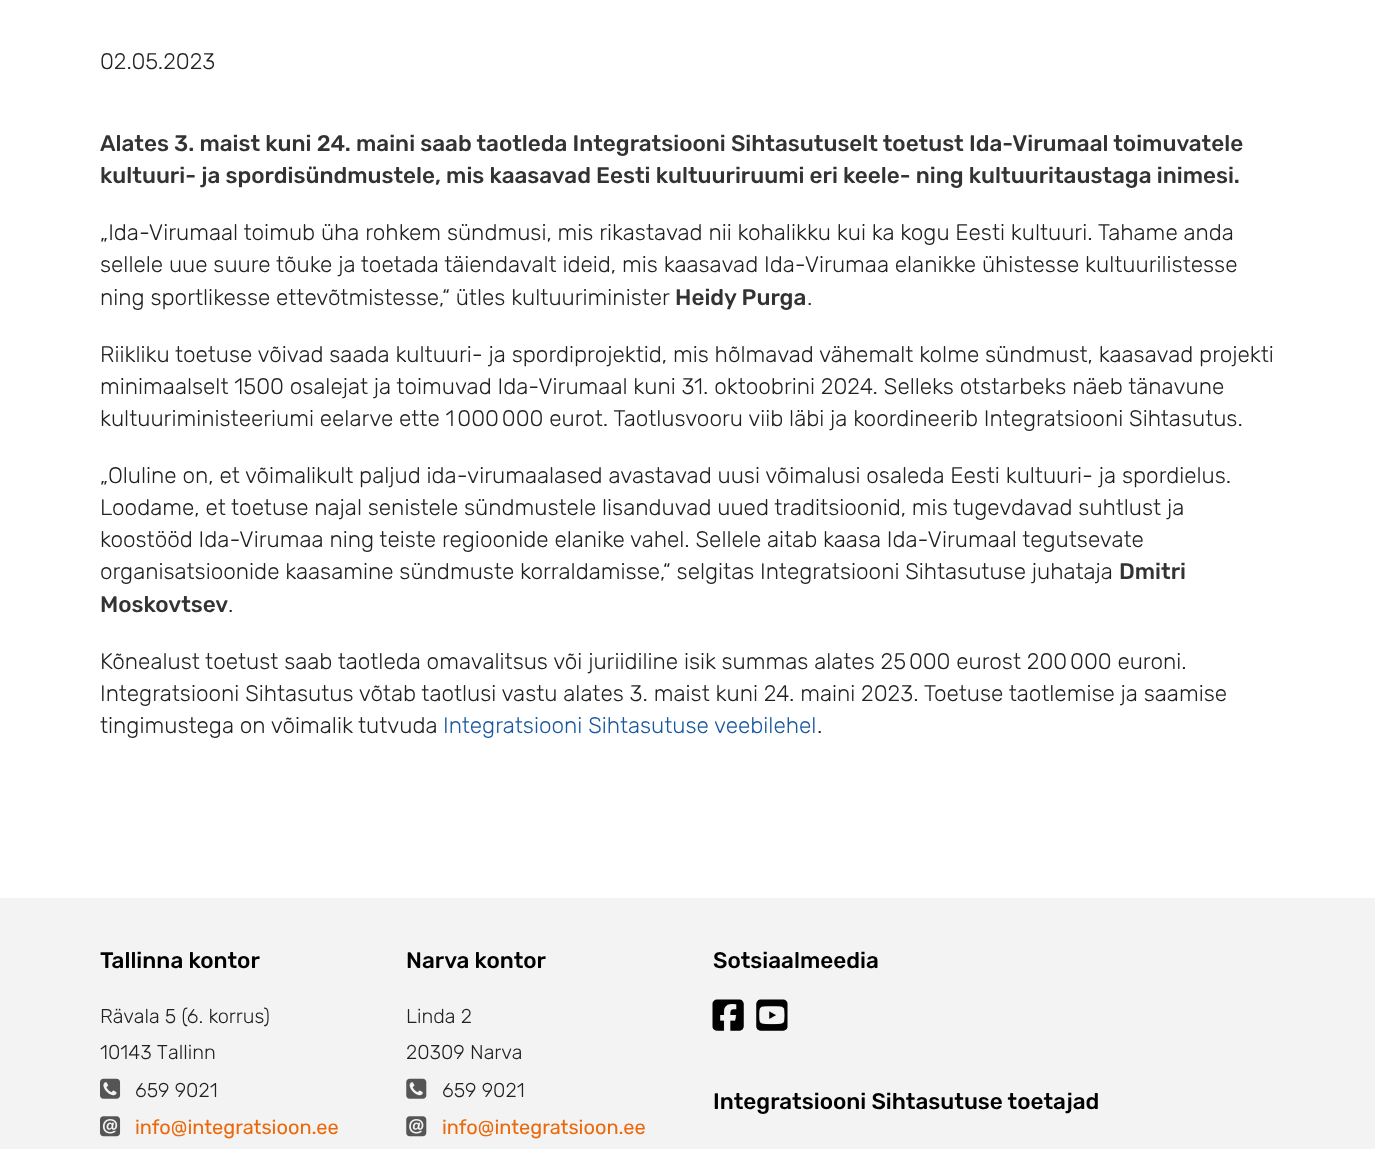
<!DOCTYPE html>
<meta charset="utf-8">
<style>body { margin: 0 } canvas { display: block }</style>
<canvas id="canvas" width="1375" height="1149"></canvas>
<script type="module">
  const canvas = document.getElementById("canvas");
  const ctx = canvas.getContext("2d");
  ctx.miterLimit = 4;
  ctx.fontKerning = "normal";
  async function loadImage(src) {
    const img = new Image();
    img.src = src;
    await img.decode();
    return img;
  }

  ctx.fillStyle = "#ffffff";
  ctx.fillRect(0, 0, 1375, 1149);
  ctx.font = "300 22.5px Rubik";
  ctx.fillStyle = "#222222";
  ctx.fillText("02.05.2023", 100, 69);
  ctx.font = "500 22.5px Rubik";
  ctx.fillStyle = "#333333";
  ctx.fillText("Alates 3. maist kuni 24. maini saab taotleda Integratsiooni Sihtasutuselt toetust Ida-Virumaal toimuvatele", 100, 151);
  ctx.fillText("kultuuri- ja spordisündmustele, mis kaasavad Eesti kultuuriruumi eri keele- ning kultuuritaustaga inimesi.", 100, 183);
  ctx.font = "300 22.5px Rubik";
  ctx.fillStyle = "#222222";
  ctx.fillText("„Ida-Virumaal toimub üha rohkem sündmusi, mis rikastavad nii kohalikku kui ka kogu Eesti kultuuri. Tahame anda", 100, 240);
  ctx.fillText("sellele uue suure tõuke ja toetada täiendavalt ideid, mis kaasavad Ida-Virumaa elanikke ühistesse kultuurilistesse", 100, 272);
  ctx.fillText("ning sportlikesse ettevõtmistesse,“ ütles kultuuriminister", 100, 305);
  ctx.font = "500 22.5px Rubik";
  ctx.fillStyle = "#333333";
  ctx.fillText("Heidy Purga", 675, 305);
  ctx.font = "300 22.5px Rubik";
  ctx.fillStyle = "#222222";
  ctx.fillText(".", 807, 305);
  ctx.fillText("Riikliku toetuse võivad saada kultuuri- ja spordiprojektid, mis hõlmavad vähemalt kolme sündmust, kaasavad projekti", 100, 362);
  ctx.fillText("minimaalselt 1500 osalejat ja toimuvad Ida-Virumaal kuni 31. oktoobrini 2024. Selleks otstarbeks näeb tänavune", 100, 394);
  ctx.fillText("kultuuriministeeriumi eelarve ette 1 000 000 eurot. Taotlusvooru viib läbi ja koordineerib Integratsiooni Sihtasutus.", 100, 426);
  ctx.fillText("„Oluline on, et võimalikult paljud ida-virumaalased avastavad uusi võimalusi osaleda Eesti kultuuri- ja spordielus.", 100, 483);
  ctx.fillText("Loodame, et toetuse najal senistele sündmustele lisanduvad uued traditsioonid, mis tugevdavad suhtlust ja", 100, 515);
  ctx.fillText("koostööd Ida-Virumaa ning teiste regioonide elanike vahel. Sellele aitab kaasa Ida-Virumaal tegutsevate", 100, 547);
  ctx.fillText("organisatsioonide kaasamine sündmuste korraldamisse,“ selgitas Integratsiooni Sihtasutuse juhataja", 100, 579);
  ctx.font = "500 22.5px Rubik";
  ctx.fillStyle = "#333333";
  ctx.fillText("Dmitri", 1119, 579);
  ctx.fillText("Moskovtsev", 100, 612);
  ctx.font = "300 22.5px Rubik";
  ctx.fillStyle = "#222222";
  ctx.fillText(".", 228, 612);
  ctx.fillText("Kõnealust toetust saab taotleda omavalitsus või juriidiline isik summas alates 25 000 eurost 200 000 euroni.", 100, 669);
  ctx.fillText("Integratsiooni Sihtasutus võtab taotlusi vastu alates 3. maist kuni 24. maini 2023. Toetuse taotlemise ja saamise", 100, 701);
  ctx.fillText("tingimustega on võimalik tutvuda", 100, 733);
  ctx.fillStyle = "#19589f";
  ctx.fillText("Integratsiooni Sihtasutuse veebilehel", 443, 733);
  ctx.fillStyle = "#222222";
  ctx.fillText(".", 817, 733);
  ctx.fillStyle = "#f3f3f3";
  ctx.fillRect(0, 898, 1375, 251);
  ctx.font = "500 22.5px Rubik";
  ctx.fillStyle = "#000000";
  ctx.fillText("Tallinna kontor", 100, 968);
  ctx.font = "300 20px Rubik";
  ctx.fillStyle = "#222222";
  ctx.fillText("Rävala 5 (6. korrus)", 100, 1023);
  ctx.fillText("10143 Тallinn", 100, 1059);
  ctx.drawImage(await loadImage("img1.png"), 100, 1078, 21, 21);
  ctx.fillText("659 9021", 135, 1097);
  ctx.drawImage(await loadImage("img2.png"), 100, 1116, 21, 21);
  ctx.font = "20px Rubik";
  ctx.fillStyle = "#eb690a";
  ctx.fillText("info@integratsioon.ee", 135, 1134);
  ctx.font = "500 22.5px Rubik";
  ctx.fillStyle = "#000000";
  ctx.fillText("Narva kontor", 406, 968);
  ctx.font = "300 20px Rubik";
  ctx.fillStyle = "#222222";
  ctx.fillText("Linda 2", 406, 1023);
  ctx.fillText("20309 Narva", 406, 1059);
  ctx.drawImage(await loadImage("img3.png"), 406, 1078, 21, 21);
  ctx.fillText("659 9021", 442, 1097);
  ctx.drawImage(await loadImage("img4.png"), 406, 1116, 21, 21);
  ctx.font = "20px Rubik";
  ctx.fillStyle = "#eb690a";
  ctx.fillText("info@integratsioon.ee", 442, 1134);
  ctx.font = "500 22.5px Rubik";
  ctx.fillStyle = "#000000";
  ctx.fillText("Sotsiaalmeedia", 713, 968);
  ctx.drawImage(await loadImage("img5.png"), 712, 999, 32, 32);
  ctx.drawImage(await loadImage("img6.png"), 756, 999, 32, 32);
  ctx.fillText("Integratsiooni Sihtasutuse toetajad", 713, 1109);
</script>
